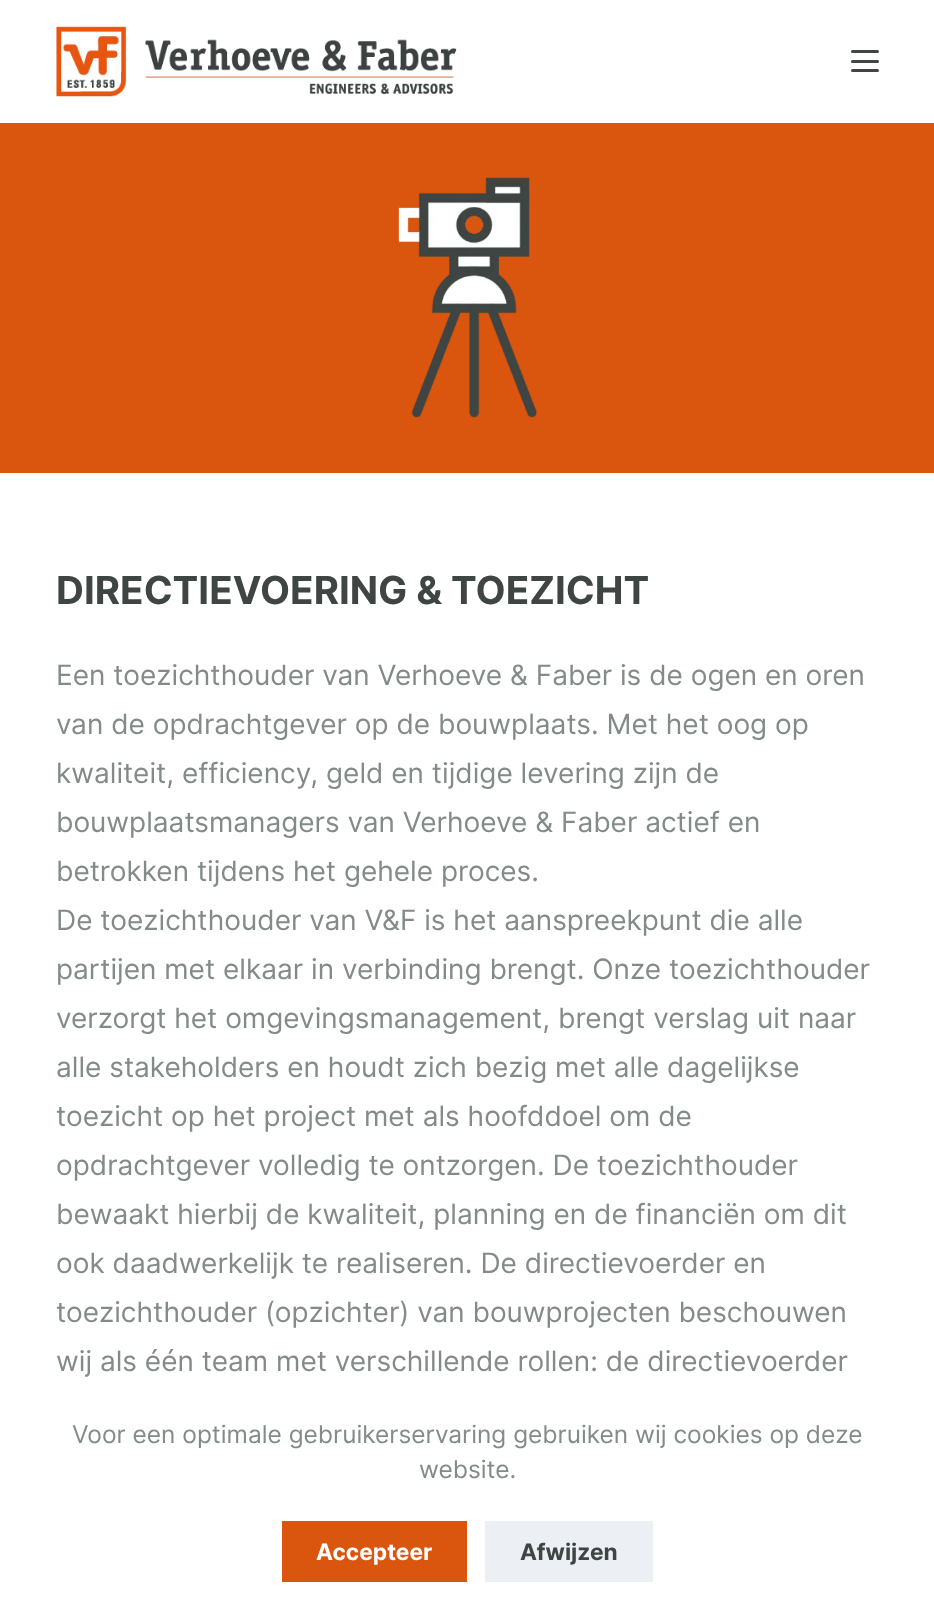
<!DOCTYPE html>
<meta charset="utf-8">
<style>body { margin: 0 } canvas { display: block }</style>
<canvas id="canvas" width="934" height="1616"></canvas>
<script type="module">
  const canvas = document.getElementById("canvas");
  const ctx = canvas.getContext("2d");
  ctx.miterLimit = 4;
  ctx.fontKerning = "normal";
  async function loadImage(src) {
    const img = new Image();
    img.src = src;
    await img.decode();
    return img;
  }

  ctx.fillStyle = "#ffffff";
  ctx.fillRect(0, 0, 934, 1616);
  ctx.drawImage(await loadImage("img1.png"), 56, 26, 401, 71);
  ctx.fillStyle = "#3e4543";
  ctx.beginPath();
  ctx.roundRect(851, 50, 28, 3, 1.5);
  ctx.fill();
  ctx.beginPath();
  ctx.roundRect(851, 60, 28, 3, 1.5);
  ctx.fill();
  ctx.beginPath();
  ctx.roundRect(851, 69, 28, 3, 1.5);
  ctx.fill();
  ctx.fillStyle = "#da550d";
  ctx.fillRect(0, 123, 934, 350);
  ctx.drawImage(await loadImage("img2.png"), 398, 177, 139, 241);
  ctx.font = "bold 38.5px Inter";
  ctx.fillStyle = "#3e4543";
  ctx.fillText("DIRECTIEVOERING & TOEZICHT", 56, 604);
  ctx.font = "28px Inter";
  ctx.fillStyle = "#838b89";
  ctx.fillText("Een toezichthouder van Verhoeve & Faber is de ogen en oren", 56, 685);
  ctx.fillText("van de opdrachtgever op de bouwplaats. Met het oog op", 56, 734);
  ctx.fillText("kwaliteit, efficiency, geld en tijdige levering zijn de", 56, 783);
  ctx.fillText("bouwplaatsmanagers van Verhoeve & Faber actief en", 56, 832);
  ctx.fillText("betrokken tijdens het gehele proces.", 56, 881);
  ctx.fillText("De toezichthouder van V&F is het aanspreekpunt die alle", 56, 930);
  ctx.fillText("partijen met elkaar in verbinding brengt. Onze toezichthouder", 56, 979);
  ctx.fillText("verzorgt het omgevingsmanagement, brengt verslag uit naar", 56, 1028);
  ctx.fillText("alle stakeholders en houdt zich bezig met alle dagelijkse", 56, 1077);
  ctx.fillText("toezicht op het project met als hoofddoel om de", 56, 1126);
  ctx.fillText("opdrachtgever volledig te ontzorgen. De toezichthouder", 56, 1175);
  ctx.fillText("bewaakt hierbij de kwaliteit, planning en de financiën om dit", 56, 1224);
  ctx.fillText("ook daadwerkelijk te realiseren. De directievoerder en", 56, 1273);
  ctx.fillText("toezichthouder (opzichter) van bouwprojecten beschouwen", 56, 1322);
  ctx.fillText("wij als één team met verschillende rollen: de directievoerder", 56, 1371);
  ctx.font = "24.5px Inter";
  ctx.fillText("Voor een optimale gebruikerservaring gebruiken wij cookies op deze", 72, 1443);
  ctx.fillText("website.", 419, 1478);
  ctx.fillStyle = "#da550d";
  ctx.fillRect(282, 1521, 185, 61);
  ctx.font = "bold 22.75px Inter";
  ctx.fillStyle = "#ffffff";
  ctx.fillText("Accepteer", 316, 1560);
  ctx.fillStyle = "#eceff3";
  ctx.fillRect(485, 1521, 168, 61);
  ctx.fillStyle = "#3e4543";
  ctx.fillText("Afwijzen", 520, 1560);
</script>
